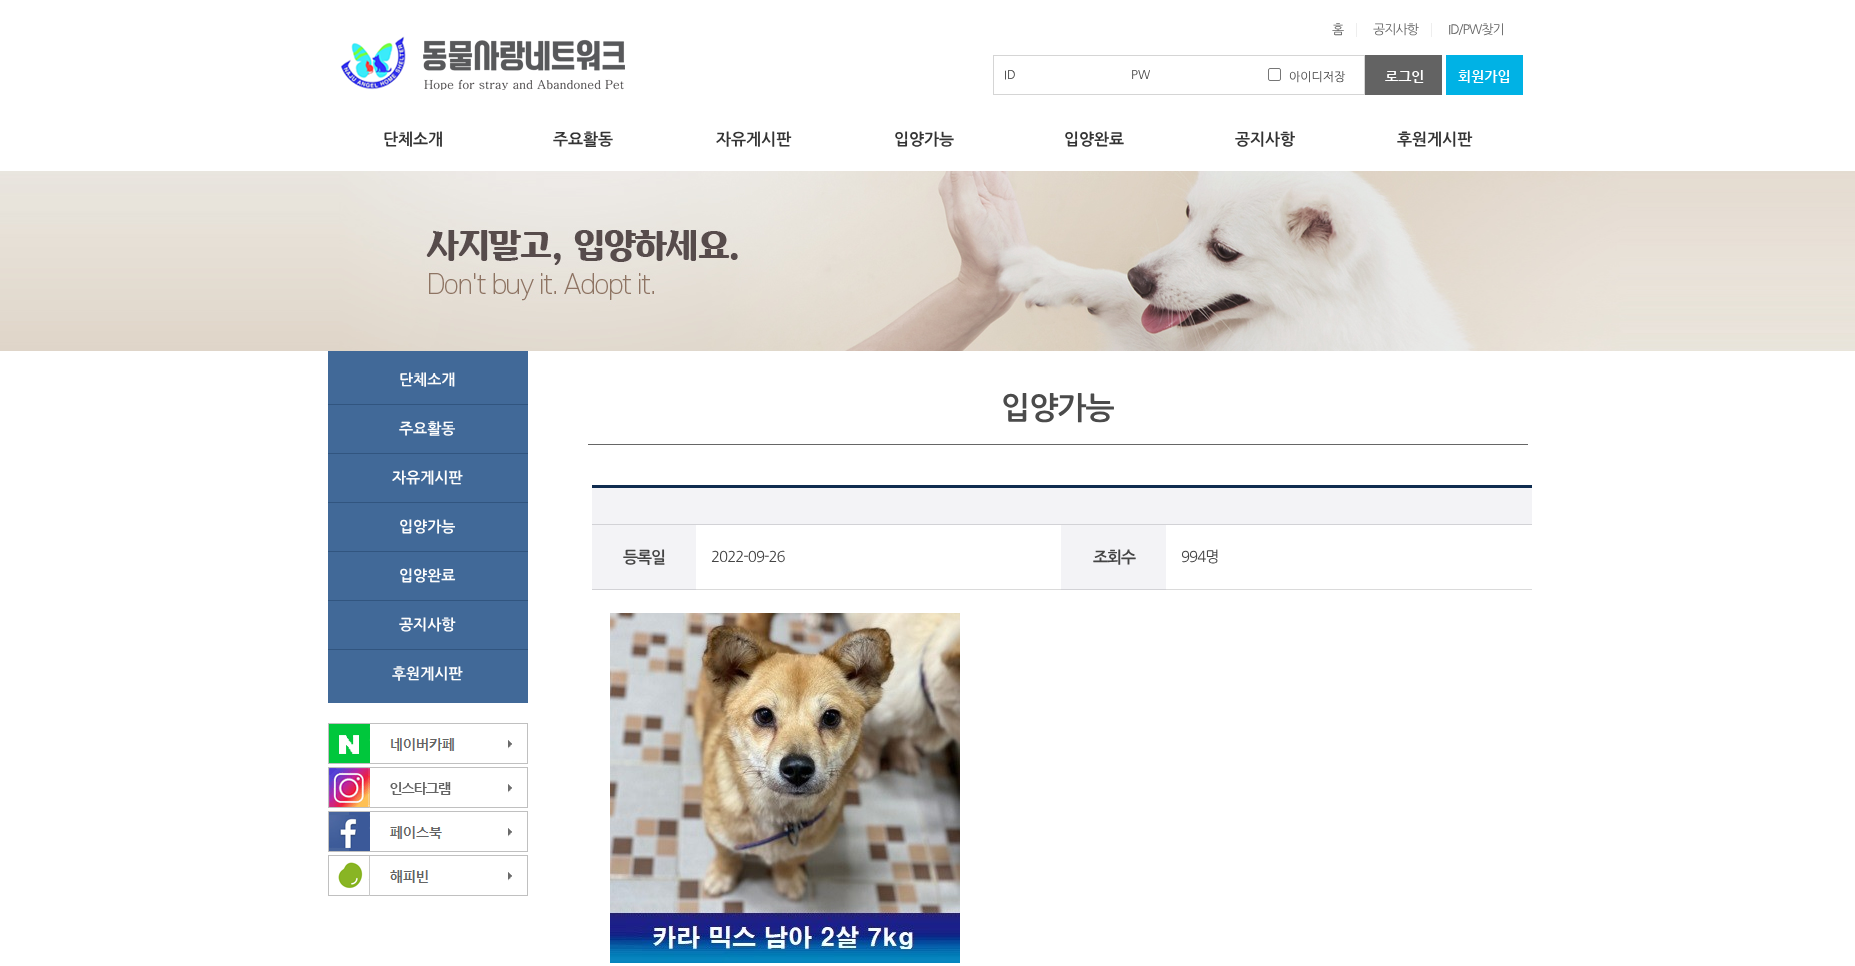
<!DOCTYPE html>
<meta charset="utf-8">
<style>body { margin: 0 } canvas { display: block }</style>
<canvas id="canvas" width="1855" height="966"></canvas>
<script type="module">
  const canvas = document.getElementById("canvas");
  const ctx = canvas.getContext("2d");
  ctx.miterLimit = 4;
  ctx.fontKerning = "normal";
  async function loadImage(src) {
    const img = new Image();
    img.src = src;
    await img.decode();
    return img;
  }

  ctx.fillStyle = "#ffffff";
  ctx.fillRect(0, 0, 1855, 966);
  ctx.drawImage(await loadImage("img1.png"), 340, 36, 285, 54);
  ctx.fillStyle = "#eeeeee";
  ctx.fillRect(1356, 23, 1, 14);
  ctx.letterSpacing = "-1px";
  ctx.font = "13px NanumGothic";
  ctx.fillStyle = "#666666";
  ctx.fillText("홈", 1332, 34);
  ctx.fillStyle = "#eeeeee";
  ctx.fillRect(1431, 23, 1, 14);
  ctx.fillStyle = "#666666";
  ctx.fillText("공지사항", 1373, 34);
  ctx.fillText("ID/PW찾기", 1448, 34);
  ctx.strokeStyle = "#d5d5d5";
  ctx.strokeRect(993.5, 55.5, 371, 39);
  ctx.letterSpacing = "0px";
  ctx.font = "12px NanumGothic";
  ctx.fillStyle = "#444444";
  ctx.fillText("ID", 1004, 79);
  ctx.fillText("PW", 1131, 79);
  ctx.beginPath();
  ctx.roundRect(1268.5, 68.5, 12, 12, 1.5);
  ctx.strokeStyle = "#767676";
  ctx.stroke();
  ctx.fillText("아이디저장", 1289, 81);
  ctx.drawImage(await loadImage("img2.png"), 1365, 55, 77, 40);
  ctx.drawImage(await loadImage("img3.png"), 1446, 55, 77, 40);
  ctx.font = "bold 16px NanumGothic";
  ctx.fillStyle = "#343434";
  ctx.fillText("단체소개", 383, 145);
  ctx.fillText("주요활동", 553, 145);
  ctx.fillText("자유게시판", 716, 145);
  ctx.fillText("입양가능", 894, 145);
  ctx.fillText("입양완료", 1064, 145);
  ctx.fillText("공지사항", 1235, 145);
  ctx.fillText("후원게시판", 1397, 145);
  ctx.drawImage(await loadImage("img4.png"), 0, 171, 1855, 180);
  ctx.drawImage(await loadImage("img5.png"), 425, 171, 1006, 180);
  ctx.fillStyle = "#416998";
  ctx.fillRect(328, 351, 200, 352);
  ctx.fillStyle = "#31557f";
  ctx.fillRect(328, 404, 200, 1);
  ctx.font = "bold 15px NanumGothic";
  ctx.fillStyle = "#fdfdfd";
  ctx.fillText("단체소개", 399, 385);
  ctx.fillStyle = "#31557f";
  ctx.fillRect(328, 453, 200, 1);
  ctx.fillStyle = "#fdfdfd";
  ctx.fillText("주요활동", 399, 434);
  ctx.fillStyle = "#31557f";
  ctx.fillRect(328, 502, 200, 1);
  ctx.fillStyle = "#fdfdfd";
  ctx.fillText("자유게시판", 392, 483);
  ctx.fillStyle = "#31557f";
  ctx.fillRect(328, 551, 200, 1);
  ctx.fillStyle = "#fdfdfd";
  ctx.fillText("입양가능", 399, 532);
  ctx.fillStyle = "#31557f";
  ctx.fillRect(328, 600, 200, 1);
  ctx.fillStyle = "#fdfdfd";
  ctx.fillText("입양완료", 399, 581);
  ctx.fillStyle = "#31557f";
  ctx.fillRect(328, 649, 200, 1);
  ctx.fillStyle = "#fdfdfd";
  ctx.fillText("공지사항", 399, 630);
  ctx.fillText("후원게시판", 392, 679);
  ctx.drawImage(await loadImage("img6.png"), 328, 723, 200, 41);
  ctx.drawImage(await loadImage("img7.png"), 328, 767, 200, 41);
  ctx.drawImage(await loadImage("img8.png"), 328, 811, 200, 41);
  ctx.drawImage(await loadImage("img9.png"), 328, 855, 200, 41);
  ctx.fillStyle = "#666666";
  ctx.fillRect(588, 444, 940, 1);
  ctx.letterSpacing = "-1px";
  ctx.font = "bold 31px NanumGothic";
  ctx.fillStyle = "#4b4b4b";
  ctx.fillText("입양가능", 1001, 419);
  ctx.fillStyle = "#0f2c4f";
  ctx.fillRect(592, 485, 940, 3);
  ctx.fillStyle = "#f3f3f6";
  ctx.fillRect(592, 488, 940, 36);
  ctx.fillStyle = "#d2d2d6";
  ctx.fillRect(592, 524, 940, 1);
  ctx.fillStyle = "#f3f3f6";
  ctx.fillRect(592, 525, 104, 64);
  ctx.fillStyle = "#d2d2d6";
  ctx.fillRect(592, 589, 104, 1);
  ctx.font = "bold 16px NanumGothic";
  ctx.fillStyle = "#444444";
  ctx.fillText("등록일", 623, 563);
  ctx.fillStyle = "#dadada";
  ctx.fillRect(696, 589, 365, 1);
  ctx.font = "15px NanumGothic";
  ctx.fillStyle = "#444444";
  ctx.fillText("2022-09-26", 711, 562);
  ctx.fillStyle = "#f3f3f6";
  ctx.fillRect(1061, 525, 105, 64);
  ctx.fillStyle = "#d2d2d6";
  ctx.fillRect(1061, 589, 105, 1);
  ctx.font = "bold 16px NanumGothic";
  ctx.fillStyle = "#444444";
  ctx.fillText("조회수", 1093, 563);
  ctx.fillStyle = "#dadada";
  ctx.fillRect(1166, 589, 366, 1);
  ctx.font = "15px NanumGothic";
  ctx.fillStyle = "#444444";
  ctx.fillText("994명", 1181, 562);
  ctx.drawImage(await loadImage("img10.png"), 610, 613, 350, 350);
</script>
